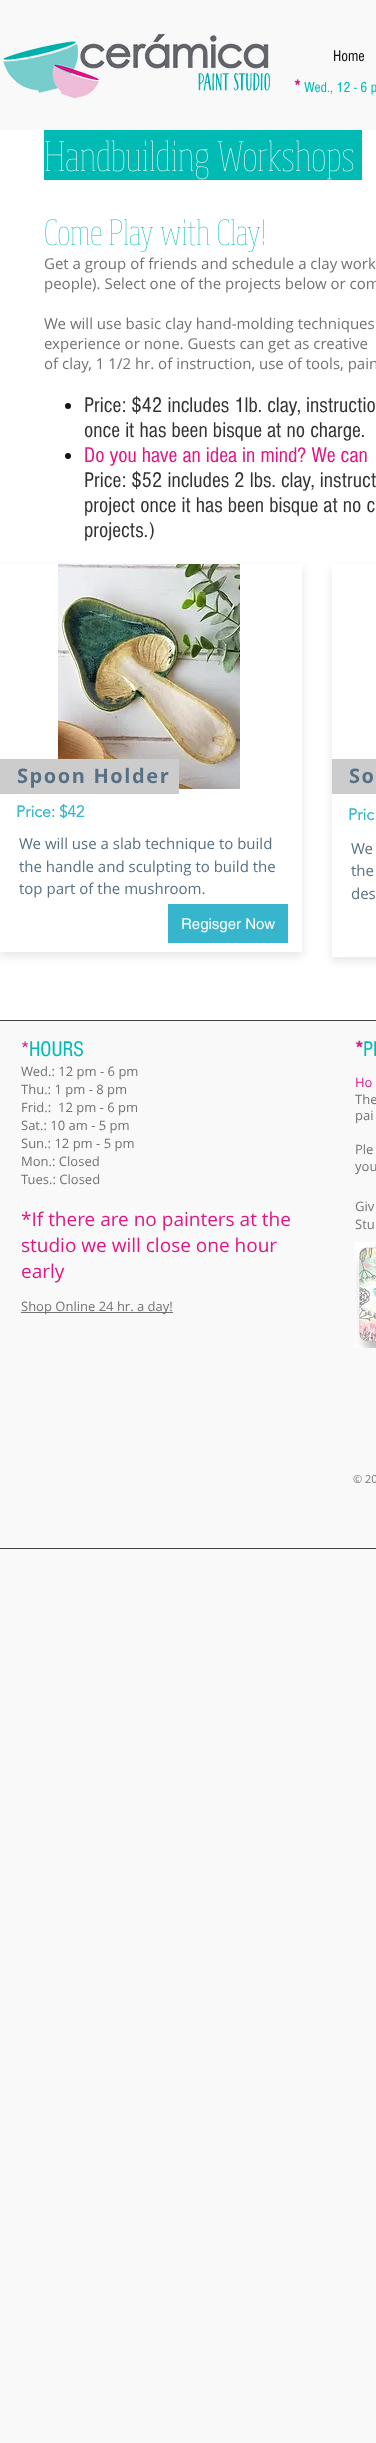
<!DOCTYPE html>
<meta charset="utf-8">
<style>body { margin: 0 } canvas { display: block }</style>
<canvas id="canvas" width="376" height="2443"></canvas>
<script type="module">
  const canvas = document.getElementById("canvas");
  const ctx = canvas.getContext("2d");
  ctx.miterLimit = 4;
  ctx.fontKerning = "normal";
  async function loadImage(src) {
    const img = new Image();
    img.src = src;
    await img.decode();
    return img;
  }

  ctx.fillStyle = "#f9f9f9";
  ctx.fillRect(0, 0, 376, 2443);
  ctx.drawImage(await loadImage("img1.png"), 3, 33, 268, 66);
  ctx.font = "16px 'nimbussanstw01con'";
  ctx.fillStyle = "#141414";
  ctx.fillText("Home", 333, 61);
  ctx.font = "bold 18px 'nimbussanstw01con'";
  ctx.fillStyle = "#df1683";
  ctx.fillText("*", 294, 92);
  ctx.font = "15px 'nimbussanstw01con'";
  ctx.fillStyle = "#00bbb4";
  ctx.fillText("Wed., 12 - 6 p", 304, 92);
  ctx.fillStyle = "#ffffff";
  ctx.fillRect(0, 130, 376, 890);
  ctx.fillStyle = "#00bbb4";
  ctx.fillRect(44, 130, 318, 50);
  ctx.drawImage(await loadImage("img2.png"), 45, 140, 309, 40);
  ctx.drawImage(await loadImage("img3.png"), 45, 219, 219, 33);
  ctx.font = "15px Open Sans";
  ctx.fillStyle = "#727272";
  ctx.fillText("Get a group of friends and schedule a clay work", 44, 269);
  ctx.fillText("people). Select one of the projects below or com", 44, 289);
  ctx.fillText("We will use basic clay hand-molding techniques", 44, 329);
  ctx.fillText("experience or none. Guests can get as creative", 44, 349);
  ctx.fillText("of clay, 1 1/2 hr. of instruction, use of tools, pain", 44, 369);
  ctx.fillStyle = "#141414";
  ctx.beginPath();
  ctx.arc(68, 406, 3, 0, Math.PI * 2);
  ctx.fill();
  ctx.font = "22px 'nimbussanstw01con'";
  ctx.fillStyle = "#333333";
  ctx.fillText("Price: $42 includes 1lb. clay, instructio", 84, 412);
  ctx.fillText("once it has been bisque at no charge.", 84, 437);
  ctx.fillStyle = "#141414";
  ctx.beginPath();
  ctx.arc(68, 456, 3, 0, Math.PI * 2);
  ctx.fill();
  ctx.fillStyle = "#df1683";
  ctx.fillText("Do you have an idea in mind? We can", 84, 462);
  ctx.fillStyle = "#333333";
  ctx.fillText("Price: $52 includes 2 lbs. clay, instruct", 84, 487);
  ctx.fillText("project once it has been bisque at no c", 84, 512);
  ctx.fillText("projects.)", 84, 537);
  ctx.save();
  ctx.beginPath();
  ctx.moveTo(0, 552);
  ctx.lineTo(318, 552);
  ctx.lineTo(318, 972);
  ctx.lineTo(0, 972);
  ctx.closePath();
  ctx.moveTo(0, 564);
  ctx.lineTo(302, 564);
  ctx.lineTo(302, 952);
  ctx.lineTo(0, 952);
  ctx.closePath();
  ctx.clip("evenodd");
  ctx.fillStyle = "rgba(0, 0, 0, 0.1)";
  ctx.filter = "blur(5px)";
  ctx.beginPath();
  ctx.rect(0, 568, 302, 388);
  ctx.fill();
  ctx.filter = "none";
  ctx.restore();
  ctx.drawImage(await loadImage("img4.png"), 58, 564, 182, 225);
  ctx.fillStyle = "#cdcccc";
  ctx.fillRect(0, 759, 179, 35);
  ctx.letterSpacing = "1.6px";
  ctx.font = "bold 20px Open Sans";
  ctx.fillStyle = "#577083";
  ctx.fillText("Spoon Holder", 17, 783);
  ctx.letterSpacing = "0px";
  ctx.font = "bold 16px 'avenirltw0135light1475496'";
  ctx.fillStyle = "#36b5cd";
  ctx.fillText("Price: $42", 16, 817);
  ctx.font = "15px Open Sans";
  ctx.fillStyle = "#577083";
  ctx.fillText("We will use a slab technique to build", 19, 849);
  ctx.fillText("the handle and sculpting to build the", 19, 872);
  ctx.fillText("top part of the mushroom.", 19, 894);
  ctx.fillStyle = "#36b5cd";
  ctx.fillRect(168, 904, 120, 39);
  ctx.font = "15px helvetica";
  ctx.fillStyle = "#ffffff";
  ctx.fillText("Regisger Now", 181, 929);
  ctx.save();
  ctx.beginPath();
  ctx.moveTo(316, 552);
  ctx.lineTo(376, 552);
  ctx.lineTo(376, 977);
  ctx.lineTo(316, 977);
  ctx.closePath();
  ctx.moveTo(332, 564);
  ctx.lineTo(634, 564);
  ctx.lineTo(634, 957);
  ctx.lineTo(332, 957);
  ctx.closePath();
  ctx.clip("evenodd");
  ctx.fillStyle = "rgba(0, 0, 0, 0.1)";
  ctx.filter = "blur(5px)";
  ctx.beginPath();
  ctx.rect(332, 568, 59, 393);
  ctx.fill();
  ctx.filter = "none";
  ctx.restore();
  ctx.fillStyle = "#cdcccc";
  ctx.fillRect(332, 759, 44, 35);
  ctx.letterSpacing = "1.6px";
  ctx.font = "bold 20px Open Sans";
  ctx.fillStyle = "#577083";
  ctx.fillText("So", 349, 783);
  ctx.letterSpacing = "0px";
  ctx.font = "bold 16px 'avenirltw0135light1475496'";
  ctx.fillStyle = "#36b5cd";
  ctx.fillText("Pric", 348, 820);
  ctx.font = "15px Open Sans";
  ctx.fillStyle = "#577083";
  ctx.fillText("We", 351, 854);
  ctx.fillText("the", 351, 876);
  ctx.fillText("des", 351, 899);
  ctx.fillStyle = "#424242";
  ctx.fillRect(0, 1020, 376, 1);
  ctx.fillRect(0, 1548, 376, 1);
  ctx.font = "22px 'nimbussanstw01con'";
  ctx.fillStyle = "#df1683";
  ctx.fillText("*", 21, 1056);
  ctx.fillStyle = "#00bbb4";
  ctx.fillText("HOURS", 29, 1056);
  ctx.font = "13px Open Sans";
  ctx.fillStyle = "#727272";
  ctx.fillText("Wed.: 12 pm - 6 pm", 21, 1076);
  ctx.fillText("Thu.: 1 pm - 8 pm", 21, 1094);
  ctx.fillText("Frid.:  12 pm - 6 pm", 21, 1112);
  ctx.fillText("Sat.: 10 am - 5 pm", 21, 1130);
  ctx.fillText("Sun.: 12 pm - 5 pm", 21, 1148);
  ctx.fillText("Mon.: Closed", 21, 1166);
  ctx.fillText("Tues.: Closed", 21, 1184);
  ctx.font = "19px Open Sans";
  ctx.fillStyle = "#df1683";
  ctx.fillText("*If there are no painters at the", 21, 1226);
  ctx.fillText("studio we will close one hour", 21, 1252);
  ctx.fillText("early", 21, 1278);
  ctx.fillStyle = "#727272";
  ctx.fillRect(21, 1312, 152, 1);
  ctx.font = "13px Open Sans";
  ctx.fillText("Shop Online 24 hr. a day!", 21, 1311);
  ctx.font = "bold 22px 'nimbussanstw01con'";
  ctx.fillStyle = "#df1683";
  ctx.fillText("*", 355, 1056);
  ctx.font = "22px 'nimbussanstw01con'";
  ctx.fillStyle = "#00bbb4";
  ctx.fillText("PL", 363, 1056);
  ctx.font = "13px Open Sans";
  ctx.fillStyle = "#df1683";
  ctx.fillText("Ho", 355, 1087);
  ctx.fillStyle = "#727272";
  ctx.fillText("The", 355, 1104);
  ctx.fillText("pai", 355, 1120);
  ctx.fillText("Ple", 355, 1154);
  ctx.fillText("you", 355, 1171);
  ctx.fillText("Giv", 355, 1211);
  ctx.fillText("Stu", 355, 1229);
  ctx.drawImage(await loadImage("img5.png"), 355, 1242, 21, 106);
  ctx.font = "11px Open Sans";
  ctx.fillText("© 20", 353, 1483);
</script>
